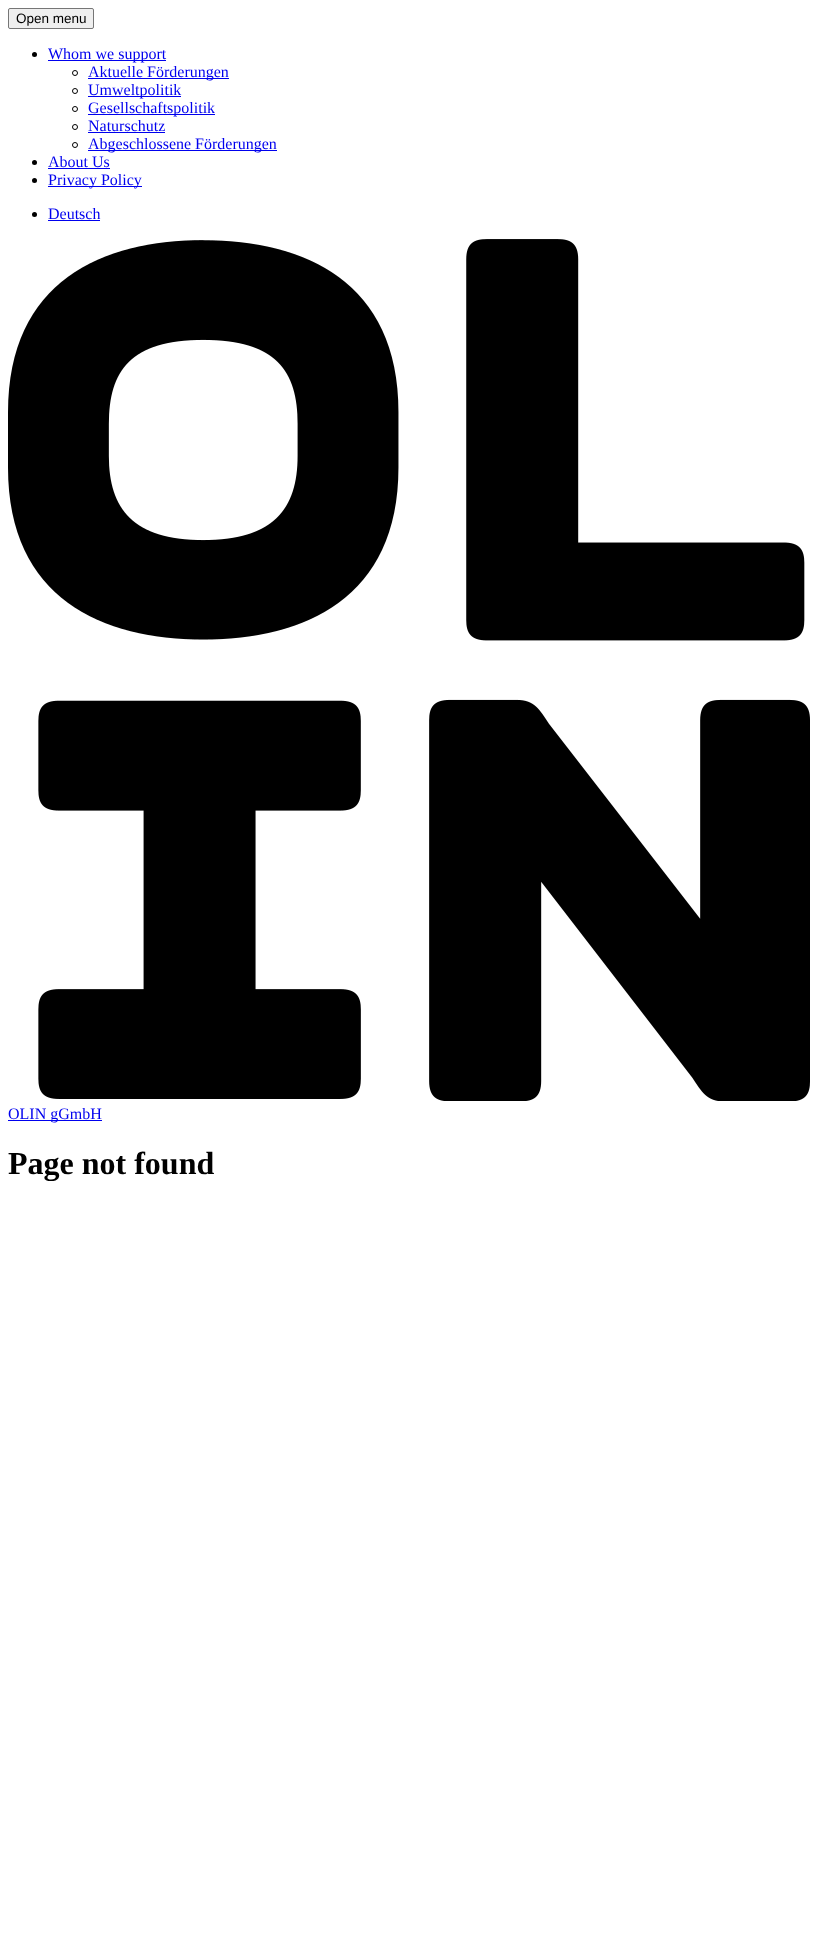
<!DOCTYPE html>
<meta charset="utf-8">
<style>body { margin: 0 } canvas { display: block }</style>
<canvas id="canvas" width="818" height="1948"></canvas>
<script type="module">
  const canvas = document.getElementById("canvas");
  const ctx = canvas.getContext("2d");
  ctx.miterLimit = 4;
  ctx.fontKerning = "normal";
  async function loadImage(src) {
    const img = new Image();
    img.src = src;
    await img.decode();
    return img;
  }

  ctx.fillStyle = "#ffffff";
  ctx.fillRect(0, 0, 818, 1948);
  ctx.fillStyle = "#efefef";
  ctx.beginPath();
  ctx.roundRect(8.5, 8.5, 85, 20, 1.5);
  ctx.fill();
  ctx.strokeStyle = "#767676";
  ctx.stroke();
  ctx.font = "13.5px Liberation Sans";
  ctx.fillStyle = "#000000";
  ctx.fillText("Open menu", 16, 23);
  ctx.beginPath();
  ctx.arc(34.5, 54.5, 2.5, 0, Math.PI * 2);
  ctx.fill();
  ctx.fillStyle = "#0000ee";
  ctx.fillRect(48, 60, 118, 1);
  ctx.font = "16px Liberation Serif";
  ctx.fillText("Whom we support", 48, 59);
  ctx.beginPath();
  ctx.arc(75, 73, 2.5, 0, Math.PI * 2);
  ctx.strokeStyle = "#000000";
  ctx.stroke();
  ctx.fillRect(88, 78, 141, 1);
  ctx.fillText("Aktuelle Förderungen", 88, 77);
  ctx.beginPath();
  ctx.arc(75, 91, 2.5, 0, Math.PI * 2);
  ctx.stroke();
  ctx.fillRect(88, 96, 93, 1);
  ctx.fillText("Umweltpolitik", 88, 95);
  ctx.beginPath();
  ctx.arc(75, 109, 2.5, 0, Math.PI * 2);
  ctx.stroke();
  ctx.fillRect(88, 114, 127, 1);
  ctx.fillText("Gesellschaftspolitik", 88, 113);
  ctx.beginPath();
  ctx.arc(75, 127, 2.5, 0, Math.PI * 2);
  ctx.stroke();
  ctx.fillText("Naturschutz", 88, 131);
  ctx.fillRect(88, 132, 77, 1);
  ctx.beginPath();
  ctx.arc(75, 145, 2.5, 0, Math.PI * 2);
  ctx.stroke();
  ctx.fillRect(88, 150, 189, 1);
  ctx.fillText("Abgeschlossene Förderungen", 88, 149);
  ctx.fillStyle = "#000000";
  ctx.beginPath();
  ctx.arc(34.5, 162.5, 2.5, 0, Math.PI * 2);
  ctx.fill();
  ctx.fillStyle = "#0000ee";
  ctx.fillText("About Us", 48, 167);
  ctx.fillRect(48, 168, 62, 1);
  ctx.fillStyle = "#000000";
  ctx.beginPath();
  ctx.arc(34.5, 180.5, 2.5, 0, Math.PI * 2);
  ctx.fill();
  ctx.fillStyle = "#0000ee";
  ctx.fillRect(48, 186, 94, 1);
  ctx.fillText("Privacy Policy", 48, 185);
  ctx.fillStyle = "#000000";
  ctx.beginPath();
  ctx.arc(34.5, 214.5, 2.5, 0, Math.PI * 2);
  ctx.fill();
  ctx.fillStyle = "#0000ee";
  ctx.fillText("Deutsch", 48, 219);
  ctx.fillRect(48, 220, 52, 1);
  ctx.drawImage(await loadImage("img1.png"), 8, 239, 802, 862);
  ctx.fillRect(8, 1120, 94, 1);
  ctx.fillText("OLIN gGmbH", 8, 1119);
  ctx.font = "bold 32px Liberation Serif";
  ctx.fillStyle = "#000000";
  ctx.fillText("Page not found", 8, 1174);
</script>
